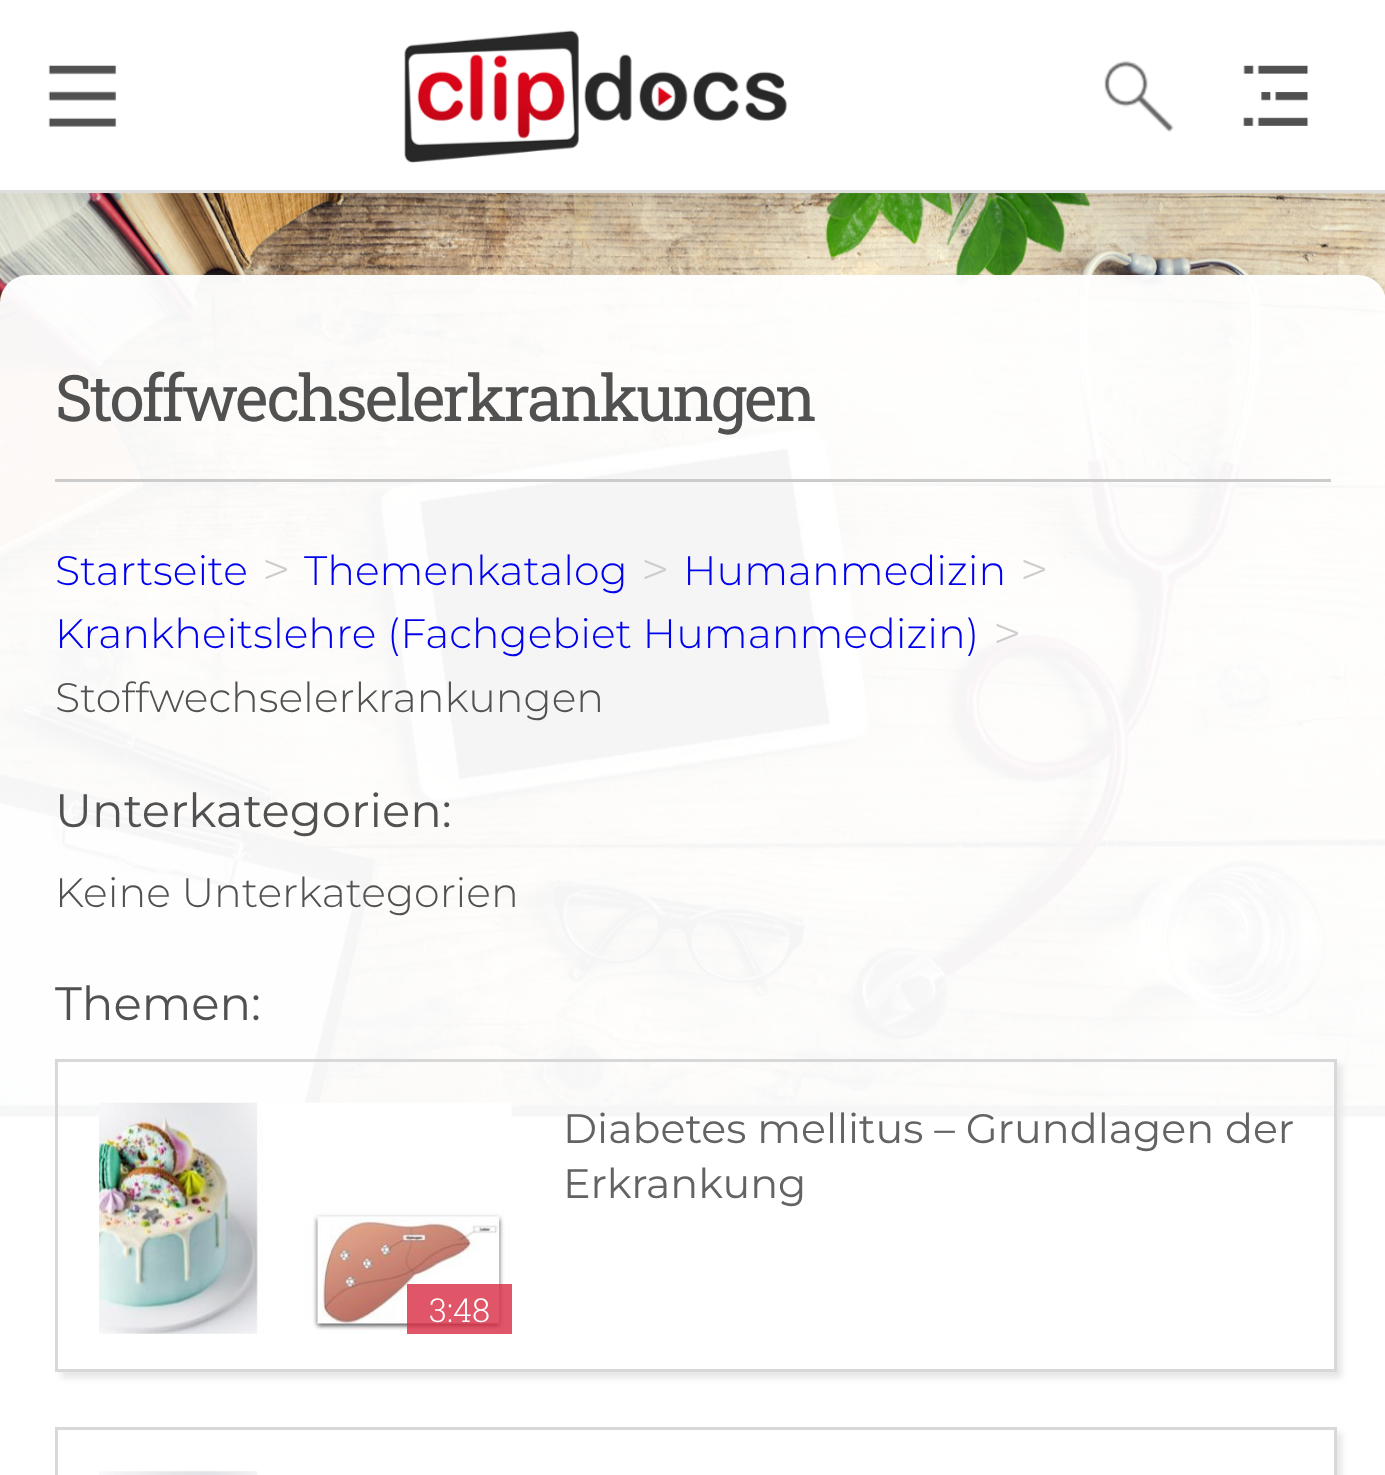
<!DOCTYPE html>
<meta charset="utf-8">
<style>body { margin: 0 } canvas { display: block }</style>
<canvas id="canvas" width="1385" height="1475"></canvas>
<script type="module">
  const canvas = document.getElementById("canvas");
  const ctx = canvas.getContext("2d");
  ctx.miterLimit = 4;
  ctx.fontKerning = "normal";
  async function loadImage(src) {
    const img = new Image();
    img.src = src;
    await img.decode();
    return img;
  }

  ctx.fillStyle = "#ececec";
  ctx.fillRect(0, 0, 1385, 1475);
  ctx.drawImage(await loadImage("img5.png"), 0, 193, 1385, 925);
  ctx.fillStyle = "rgba(0, 0, 0, 0.05)";
  ctx.filter = "blur(14px)";
  ctx.beginPath();
  ctx.rect(8, 8, 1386, 193);
  ctx.fill();
  ctx.filter = "none";
  ctx.fillStyle = "#ffffff";
  ctx.fillRect(0, 0, 1385, 190);
  ctx.fillStyle = "#dedede";
  ctx.fillRect(0, 190, 1385, 3);
  ctx.drawImage(await loadImage("img1.png"), 48, 65, 69, 62);
  ctx.drawImage(await loadImage("img2.png"), 404, 30, 383, 133);
  ctx.drawImage(await loadImage("img3.png"), 1104, 60, 70, 72);
  ctx.drawImage(await loadImage("img4.png"), 1243, 65, 66, 61);
  ctx.fillStyle = "rgba(255, 255, 255, 0.96)";
  ctx.beginPath();
  ctx.roundRect(0, 275, 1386, 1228, 28);
  ctx.fill();
  ctx.letterSpacing = "-2.75px";
  ctx.font = "64px Roboto Slab";
  ctx.fillStyle = "#515151";
  ctx.fillText("Stoffwechselerkrankungen", 55, 421);
  ctx.fillStyle = "#cccccc";
  ctx.fillRect(55, 479, 1276, 3);
  ctx.letterSpacing = "0px";
  ctx.font = "300 41.25px Montserrat";
  ctx.fillStyle = "#0000ee";
  ctx.fillText("Startseite", 55, 585);
  ctx.font = "300 50px Montserrat";
  ctx.fillStyle = "#cccccc";
  ctx.fillText(">", 262, 587);
  ctx.font = "300 41.25px Montserrat";
  ctx.fillStyle = "#0000ee";
  ctx.fillText("Themenkatalog", 304, 585);
  ctx.font = "300 50px Montserrat";
  ctx.fillStyle = "#cccccc";
  ctx.fillText(">", 641, 587);
  ctx.font = "300 41.25px Montserrat";
  ctx.fillStyle = "#0000ee";
  ctx.fillText("Humanmedizin", 683, 585);
  ctx.font = "300 50px Montserrat";
  ctx.fillStyle = "#cccccc";
  ctx.fillText(">", 1020, 587);
  ctx.font = "300 41.25px Montserrat";
  ctx.fillStyle = "#0000ee";
  ctx.fillText("Krankheitslehre (Fachgebiet Humanmedizin)", 55, 648);
  ctx.font = "300 50px Montserrat";
  ctx.fillStyle = "#cccccc";
  ctx.fillText(">", 993, 651);
  ctx.font = "300 41.25px Montserrat";
  ctx.fillStyle = "#515151";
  ctx.fillText("Stoffwechselerkrankungen", 55, 712);
  ctx.font = "46.75px Montserrat";
  ctx.fillText("Unterkategorien:", 55, 827);
  ctx.font = "300 41.25px Montserrat";
  ctx.fillText("Keine Unterkategorien", 55, 907);
  ctx.font = "46.75px Montserrat";
  ctx.fillText("Themen:", 55, 1020);
  ctx.save();
  ctx.beginPath();
  ctx.moveTo(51, 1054);
  ctx.lineTo(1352, 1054);
  ctx.lineTo(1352, 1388);
  ctx.lineTo(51, 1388);
  ctx.closePath();
  ctx.moveTo(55, 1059);
  ctx.lineTo(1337, 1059);
  ctx.lineTo(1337, 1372);
  ctx.lineTo(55, 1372);
  ctx.closePath();
  ctx.clip("evenodd");
  ctx.fillStyle = "#e6e6e6";
  ctx.filter = "blur(3px)";
  ctx.beginPath();
  ctx.rect(61, 1064, 1281, 314);
  ctx.fill();
  ctx.filter = "none";
  ctx.restore();
  ctx.strokeStyle = "#d8d8d8";
  ctx.lineWidth = 3;
  ctx.strokeRect(56.5, 1060.5, 1279, 310);
  ctx.font = "41.25px Montserrat";
  ctx.fillStyle = "#636363";
  ctx.fillText("Diabetes mellitus – Grundlagen der", 563, 1143);
  ctx.fillText("Erkrankung", 563, 1198);
  ctx.drawImage(await loadImage("img6.png"), 99, 1102, 413, 232);
  ctx.fillStyle = "rgba(217, 43, 66, 0.8)";
  ctx.fillRect(407, 1284, 105, 50);
  ctx.font = "300 33px Roboto Slab";
  ctx.fillStyle = "#ffffff";
  ctx.fillText("3:48", 429, 1322);
  ctx.save();
  ctx.beginPath();
  ctx.rect(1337, 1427, 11, 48);
  ctx.clip();
  ctx.fillStyle = "#e6e6e6";
  ctx.filter = "blur(3px)";
  ctx.beginPath();
  ctx.rect(61, 1433, 1281, 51);
  ctx.fill();
  ctx.filter = "none";
  ctx.restore();
  ctx.strokeRect(56.5, 1428.5, 1279, 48);
  ctx.drawImage(await loadImage("img7.png"), 99, 1471, 159, 4);
</script>
